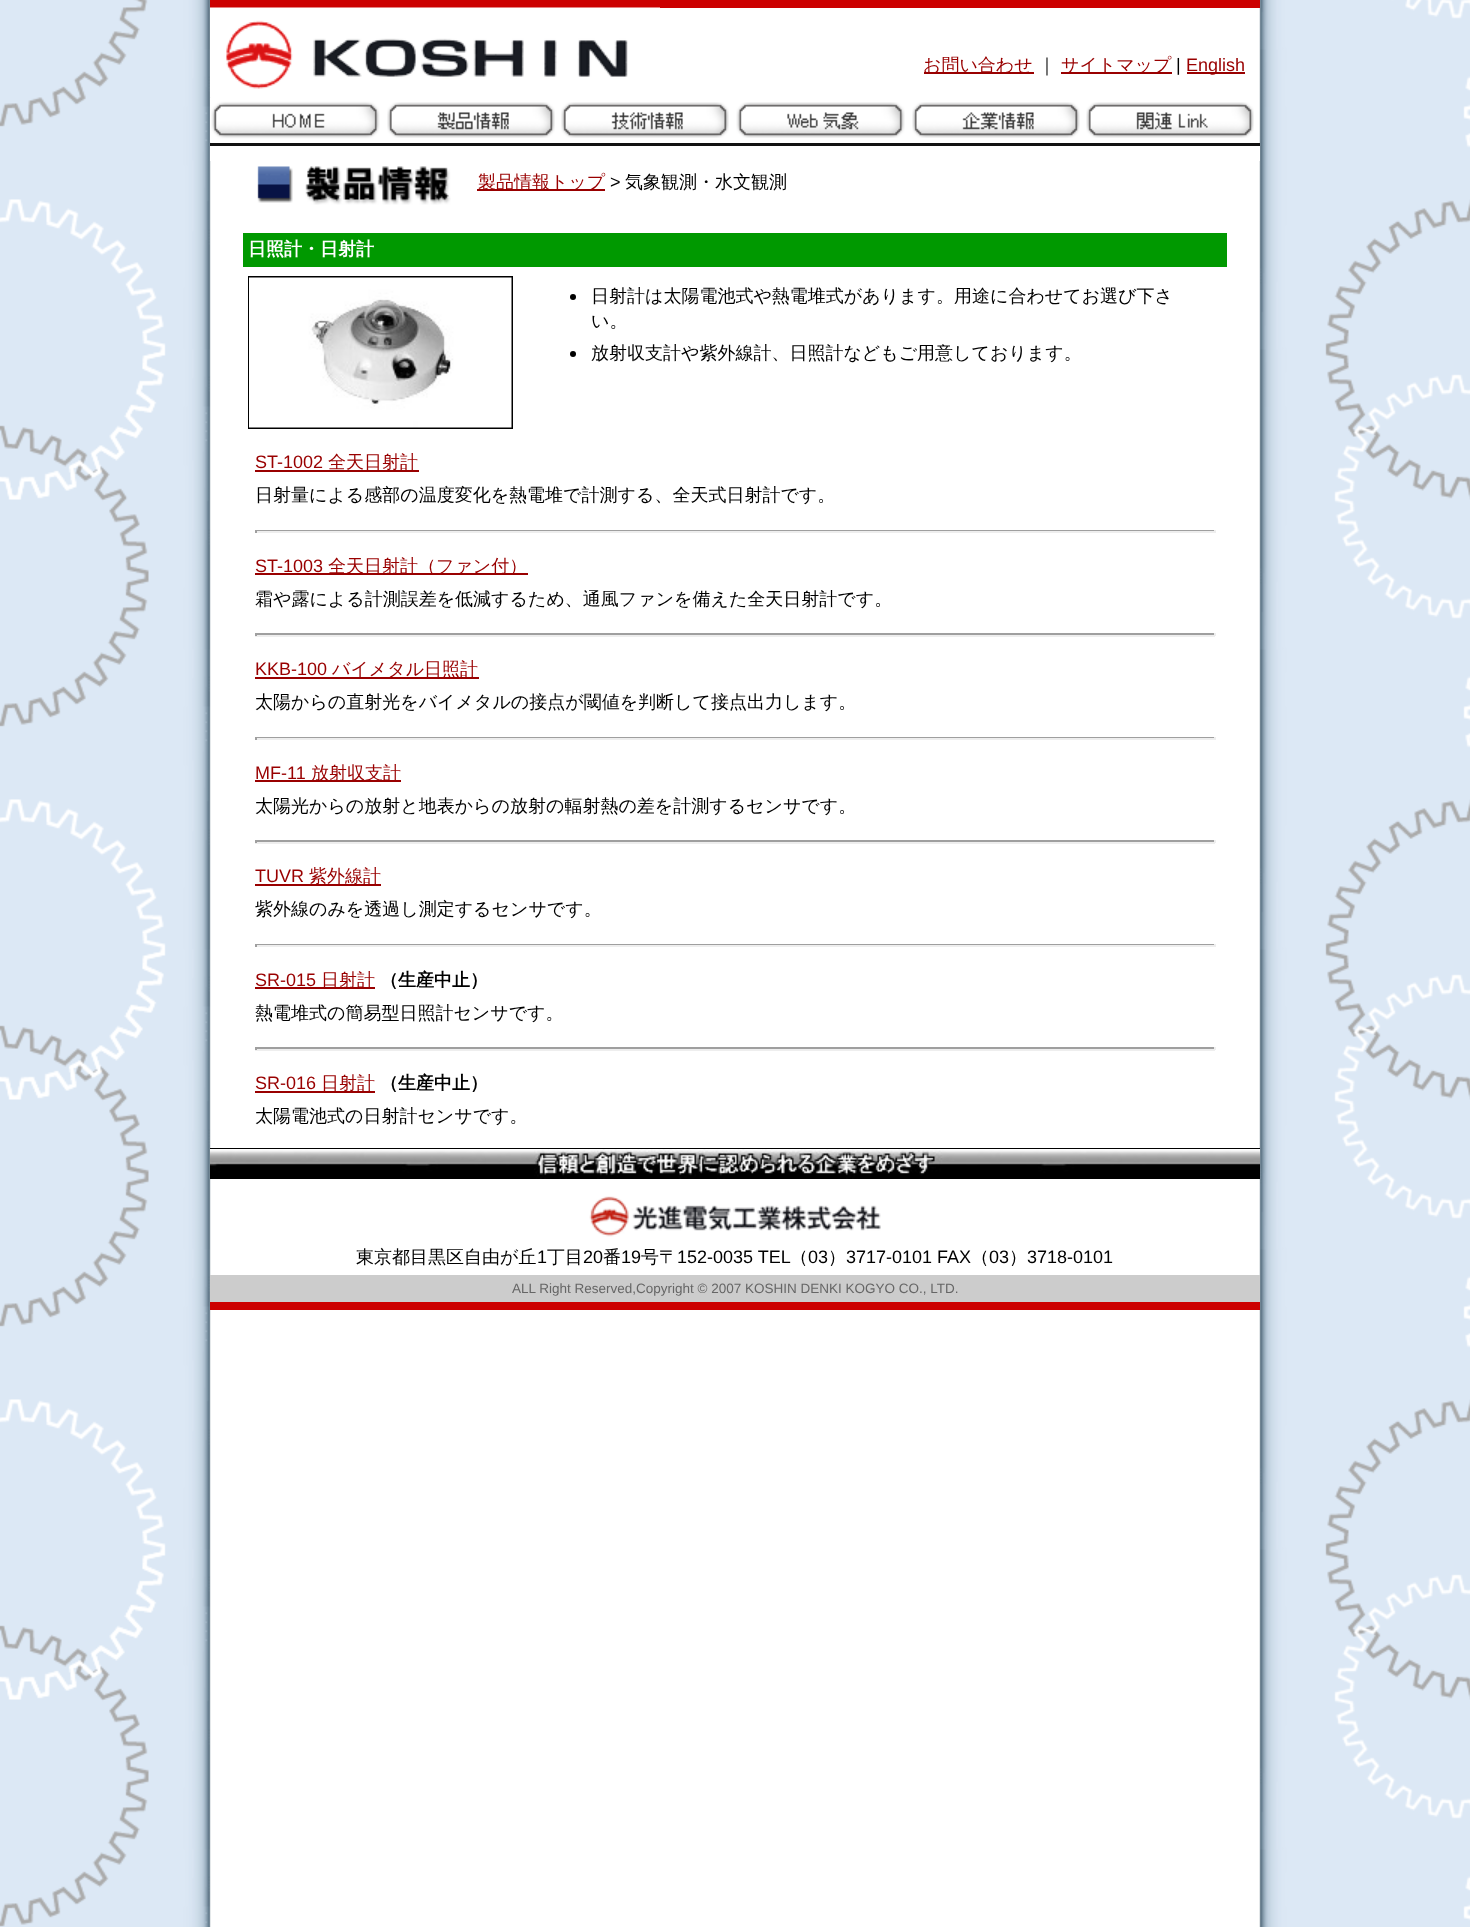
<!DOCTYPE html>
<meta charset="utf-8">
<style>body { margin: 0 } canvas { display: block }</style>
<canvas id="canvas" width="1470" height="1927"></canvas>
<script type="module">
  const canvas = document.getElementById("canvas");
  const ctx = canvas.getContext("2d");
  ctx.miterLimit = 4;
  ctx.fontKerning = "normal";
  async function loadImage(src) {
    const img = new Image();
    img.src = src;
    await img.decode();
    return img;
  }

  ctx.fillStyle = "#ffffff";
  ctx.fillRect(0, 0, 1470, 1927);
  ctx.drawImage(await loadImage("img1.png"), 0, 0, 1470, 1927);
  ctx.fillStyle = "#cc0000";
  ctx.fillRect(210, 0, 1050, 8);
  ctx.drawImage(await loadImage("img3.png"), 210, 97, 170, 46);
  ctx.drawImage(await loadImage("img2.png"), 210, 7, 450, 91);
  ctx.fillStyle = "#990000";
  ctx.fillRect(924, 72, 110, 2);
  ctx.font = "500 18px WenQuanYi Zen Hei";
  ctx.fillText("お問い合わせ", 923, 71);
  ctx.fillStyle = "#000000";
  ctx.fillText("｜", 1038, 71);
  ctx.fillStyle = "#990000";
  ctx.fillRect(1061, 72, 111, 2);
  ctx.fillText("サイトマップ", 1061, 71);
  ctx.font = "18px Liberation Sans";
  ctx.fillStyle = "#000000";
  ctx.fillText("|", 1176, 71);
  ctx.fillStyle = "#990000";
  ctx.fillRect(1187, 72, 58, 2);
  ctx.fillText("English", 1186, 71);
  ctx.drawImage(await loadImage("img4.png"), 387, 102, 168, 36);
  ctx.drawImage(await loadImage("img5.png"), 561, 102, 168, 36);
  ctx.drawImage(await loadImage("img6.png"), 736, 102, 169, 36);
  ctx.drawImage(await loadImage("img7.png"), 912, 102, 168, 36);
  ctx.drawImage(await loadImage("img8.png"), 1086, 102, 168, 36);
  ctx.fillStyle = "#111111";
  ctx.fillRect(210, 143, 1050, 3);
  ctx.fillStyle = "#ffffff";
  ctx.fillRect(210, 146, 1050, 15);
  ctx.drawImage(await loadImage("img9.png"), 257, 166, 194, 39);
  ctx.fillStyle = "#990000";
  ctx.fillRect(477, 189, 128, 2);
  ctx.font = "500 18px WenQuanYi Zen Hei";
  ctx.fillText("製品情報トップ", 478, 188);
  ctx.font = "18px Liberation Sans";
  ctx.fillStyle = "#000000";
  ctx.fillText(">", 610, 188);
  ctx.font = "500 18px WenQuanYi Zen Hei";
  ctx.fillText("気象観測・水文観測", 625, 188);
  ctx.fillStyle = "#009900";
  ctx.fillRect(243, 233, 984, 34);
  ctx.font = "bold 18px WenQuanYi Zen Hei";
  ctx.fillStyle = "#ffffff";
  ctx.fillText("日照計・日射計", 248, 255);
  ctx.strokeStyle = "#000000";
  ctx.lineWidth = 2;
  ctx.strokeRect(249, 277, 263, 151);
  ctx.drawImage(await loadImage("img10.png"), 249, 277, 263, 151);
  ctx.fillStyle = "#000000";
  ctx.beginPath();
  ctx.arc(573, 297, 3, 0, Math.PI * 2);
  ctx.fill();
  ctx.font = "500 18px WenQuanYi Zen Hei";
  ctx.fillText("日射計は太陽電池式や熱電堆式があります。用途に合わせてお選び下さ", 591, 302);
  ctx.fillText("い。", 591, 327);
  ctx.beginPath();
  ctx.arc(573, 354, 3, 0, Math.PI * 2);
  ctx.fill();
  ctx.fillText("放射収支計や紫外線計、日照計などもご用意しております。", 591, 359);
  ctx.font = "18px Liberation Sans";
  ctx.fillStyle = "#990000";
  ctx.fillText("ST-1002", 255, 468);
  ctx.fillRect(255, 470, 164, 2);
  ctx.font = "500 18px WenQuanYi Zen Hei";
  ctx.fillText("全天日射計", 328, 468);
  ctx.fillStyle = "#000000";
  ctx.fillText("日射量による感部の温度変化を熱電堆で計測する、全天式日射計です。", 255, 501);
  ctx.fillStyle = "#9f9f9f";
  ctx.fillRect(255, 530, 960, 1);
  ctx.fillStyle = "#eeeeee";
  ctx.fillRect(1214, 530, 2, 3);
  ctx.fillRect(255, 531, 960, 2);
  ctx.fillStyle = "#9f9f9f";
  ctx.fillRect(255, 530, 2, 3);
  ctx.font = "18px Liberation Sans";
  ctx.fillStyle = "#990000";
  ctx.fillText("ST-1003", 255, 572);
  ctx.fillRect(255, 573, 273, 2);
  ctx.font = "500 18px WenQuanYi Zen Hei";
  ctx.fillText("全天日射計（ファン付）", 328, 572);
  ctx.fillStyle = "#000000";
  ctx.fillText("霜や露による計測誤差を低減するため、通風ファンを備えた全天日射計です。", 255, 605);
  ctx.fillStyle = "#9f9f9f";
  ctx.fillRect(255, 633, 960, 2);
  ctx.fillStyle = "#eeeeee";
  ctx.fillRect(1214, 633, 2, 3);
  ctx.fillRect(255, 635, 960, 2);
  ctx.fillStyle = "#9f9f9f";
  ctx.fillRect(255, 633, 2, 3);
  ctx.font = "18px Liberation Sans";
  ctx.fillStyle = "#990000";
  ctx.fillText("KKB-100", 255, 675);
  ctx.fillRect(255, 677, 224, 2);
  ctx.font = "500 18px WenQuanYi Zen Hei";
  ctx.fillText("バイメタル日照計", 332, 675);
  ctx.fillStyle = "#000000";
  ctx.fillText("太陽からの直射光をバイメタルの接点が閾値を判断して接点出力します。", 255, 708);
  ctx.fillStyle = "#9f9f9f";
  ctx.fillRect(255, 737, 960, 1);
  ctx.fillStyle = "#eeeeee";
  ctx.fillRect(1214, 737, 2, 3);
  ctx.fillRect(255, 738, 960, 2);
  ctx.fillStyle = "#9f9f9f";
  ctx.fillRect(255, 737, 2, 3);
  ctx.font = "18px Liberation Sans";
  ctx.fillStyle = "#990000";
  ctx.fillText("MF-11", 255, 779);
  ctx.fillRect(255, 780, 146, 2);
  ctx.font = "500 18px WenQuanYi Zen Hei";
  ctx.fillText("放射収支計", 311, 779);
  ctx.fillStyle = "#000000";
  ctx.fillText("太陽光からの放射と地表からの放射の輻射熱の差を計測するセンサです。", 255, 812);
  ctx.fillStyle = "#9f9f9f";
  ctx.fillRect(255, 840, 960, 2);
  ctx.fillStyle = "#eeeeee";
  ctx.fillRect(1214, 840, 2, 3);
  ctx.fillRect(255, 842, 960, 2);
  ctx.fillStyle = "#9f9f9f";
  ctx.fillRect(255, 840, 2, 3);
  ctx.font = "18px Liberation Sans";
  ctx.fillStyle = "#990000";
  ctx.fillText("TUVR", 255, 882);
  ctx.fillRect(255, 884, 126, 2);
  ctx.font = "500 18px WenQuanYi Zen Hei";
  ctx.fillText("紫外線計", 309, 882);
  ctx.fillStyle = "#000000";
  ctx.fillText("紫外線のみを透過し測定するセンサです。", 255, 915);
  ctx.fillStyle = "#9f9f9f";
  ctx.fillRect(255, 944, 960, 1);
  ctx.fillStyle = "#eeeeee";
  ctx.fillRect(1214, 944, 2, 3);
  ctx.fillRect(255, 945, 960, 2);
  ctx.fillStyle = "#9f9f9f";
  ctx.fillRect(255, 944, 2, 3);
  ctx.font = "18px Liberation Sans";
  ctx.fillStyle = "#990000";
  ctx.fillText("SR-015", 255, 986);
  ctx.fillRect(255, 987, 120, 2);
  ctx.font = "500 18px WenQuanYi Zen Hei";
  ctx.fillText("日射計", 321, 986);
  ctx.font = "bold 18px WenQuanYi Zen Hei";
  ctx.fillStyle = "#000000";
  ctx.fillText("（生産中止）", 380, 986);
  ctx.font = "500 18px WenQuanYi Zen Hei";
  ctx.fillText("熱電堆式の簡易型日照計センサです。", 255, 1019);
  ctx.fillStyle = "#9f9f9f";
  ctx.fillRect(255, 1047, 960, 2);
  ctx.fillStyle = "#eeeeee";
  ctx.fillRect(1214, 1047, 2, 3);
  ctx.fillRect(255, 1049, 960, 2);
  ctx.fillStyle = "#9f9f9f";
  ctx.fillRect(255, 1047, 2, 3);
  ctx.font = "18px Liberation Sans";
  ctx.fillStyle = "#990000";
  ctx.fillText("SR-016", 255, 1089);
  ctx.fillRect(255, 1091, 120, 2);
  ctx.font = "500 18px WenQuanYi Zen Hei";
  ctx.fillText("日射計", 321, 1089);
  ctx.font = "bold 18px WenQuanYi Zen Hei";
  ctx.fillStyle = "#000000";
  ctx.fillText("（生産中止）", 380, 1089);
  ctx.font = "500 18px WenQuanYi Zen Hei";
  ctx.fillText("太陽電池式の日射計センサです。", 255, 1122);
  ctx.fillRect(210, 1148, 1050, 1);
  ctx.drawImage(await loadImage("img11.png"), 210, 1149, 1050, 30);
  ctx.drawImage(await loadImage("img12.png"), 589, 1196, 292, 41);
  ctx.fillText("東京都目黒区自由が丘", 356, 1263);
  ctx.font = "18px Liberation Sans";
  ctx.fillText("1", 537, 1263);
  ctx.font = "500 18px WenQuanYi Zen Hei";
  ctx.fillText("丁目", 547, 1263);
  ctx.font = "18px Liberation Sans";
  ctx.fillText("20", 583, 1263);
  ctx.font = "500 18px WenQuanYi Zen Hei";
  ctx.fillText("番", 603, 1263);
  ctx.font = "18px Liberation Sans";
  ctx.fillText("19", 621, 1263);
  ctx.font = "500 18px WenQuanYi Zen Hei";
  ctx.fillText("号〒", 641, 1263);
  ctx.font = "18px Liberation Sans";
  ctx.fillText("152‐0035 TEL", 677, 1263);
  ctx.font = "500 18px WenQuanYi Zen Hei";
  ctx.fillText("（", 790, 1263);
  ctx.font = "18px Liberation Sans";
  ctx.fillText("03", 808, 1263);
  ctx.font = "500 18px WenQuanYi Zen Hei";
  ctx.fillText("）", 828, 1263);
  ctx.font = "18px Liberation Sans";
  ctx.fillText("3717-0101 FAX", 846, 1263);
  ctx.font = "500 18px WenQuanYi Zen Hei";
  ctx.fillText("（", 971, 1263);
  ctx.font = "18px Liberation Sans";
  ctx.fillText("03", 989, 1263);
  ctx.font = "500 18px WenQuanYi Zen Hei";
  ctx.fillText("）", 1009, 1263);
  ctx.font = "18px Liberation Sans";
  ctx.fillText("3718-0101", 1027, 1263);
  ctx.fillStyle = "#cccccc";
  ctx.fillRect(210, 1275, 1050, 27);
  ctx.fillStyle = "#cc0000";
  ctx.fillRect(210, 1302, 1050, 8);
  ctx.font = "13.5px Liberation Sans";
  ctx.fillStyle = "#666666";
  ctx.fillText("ALL Right Reserved,Copyright © 2007 KOSHIN DENKI KOGYO CO., LTD.", 512, 1293);
</script>
